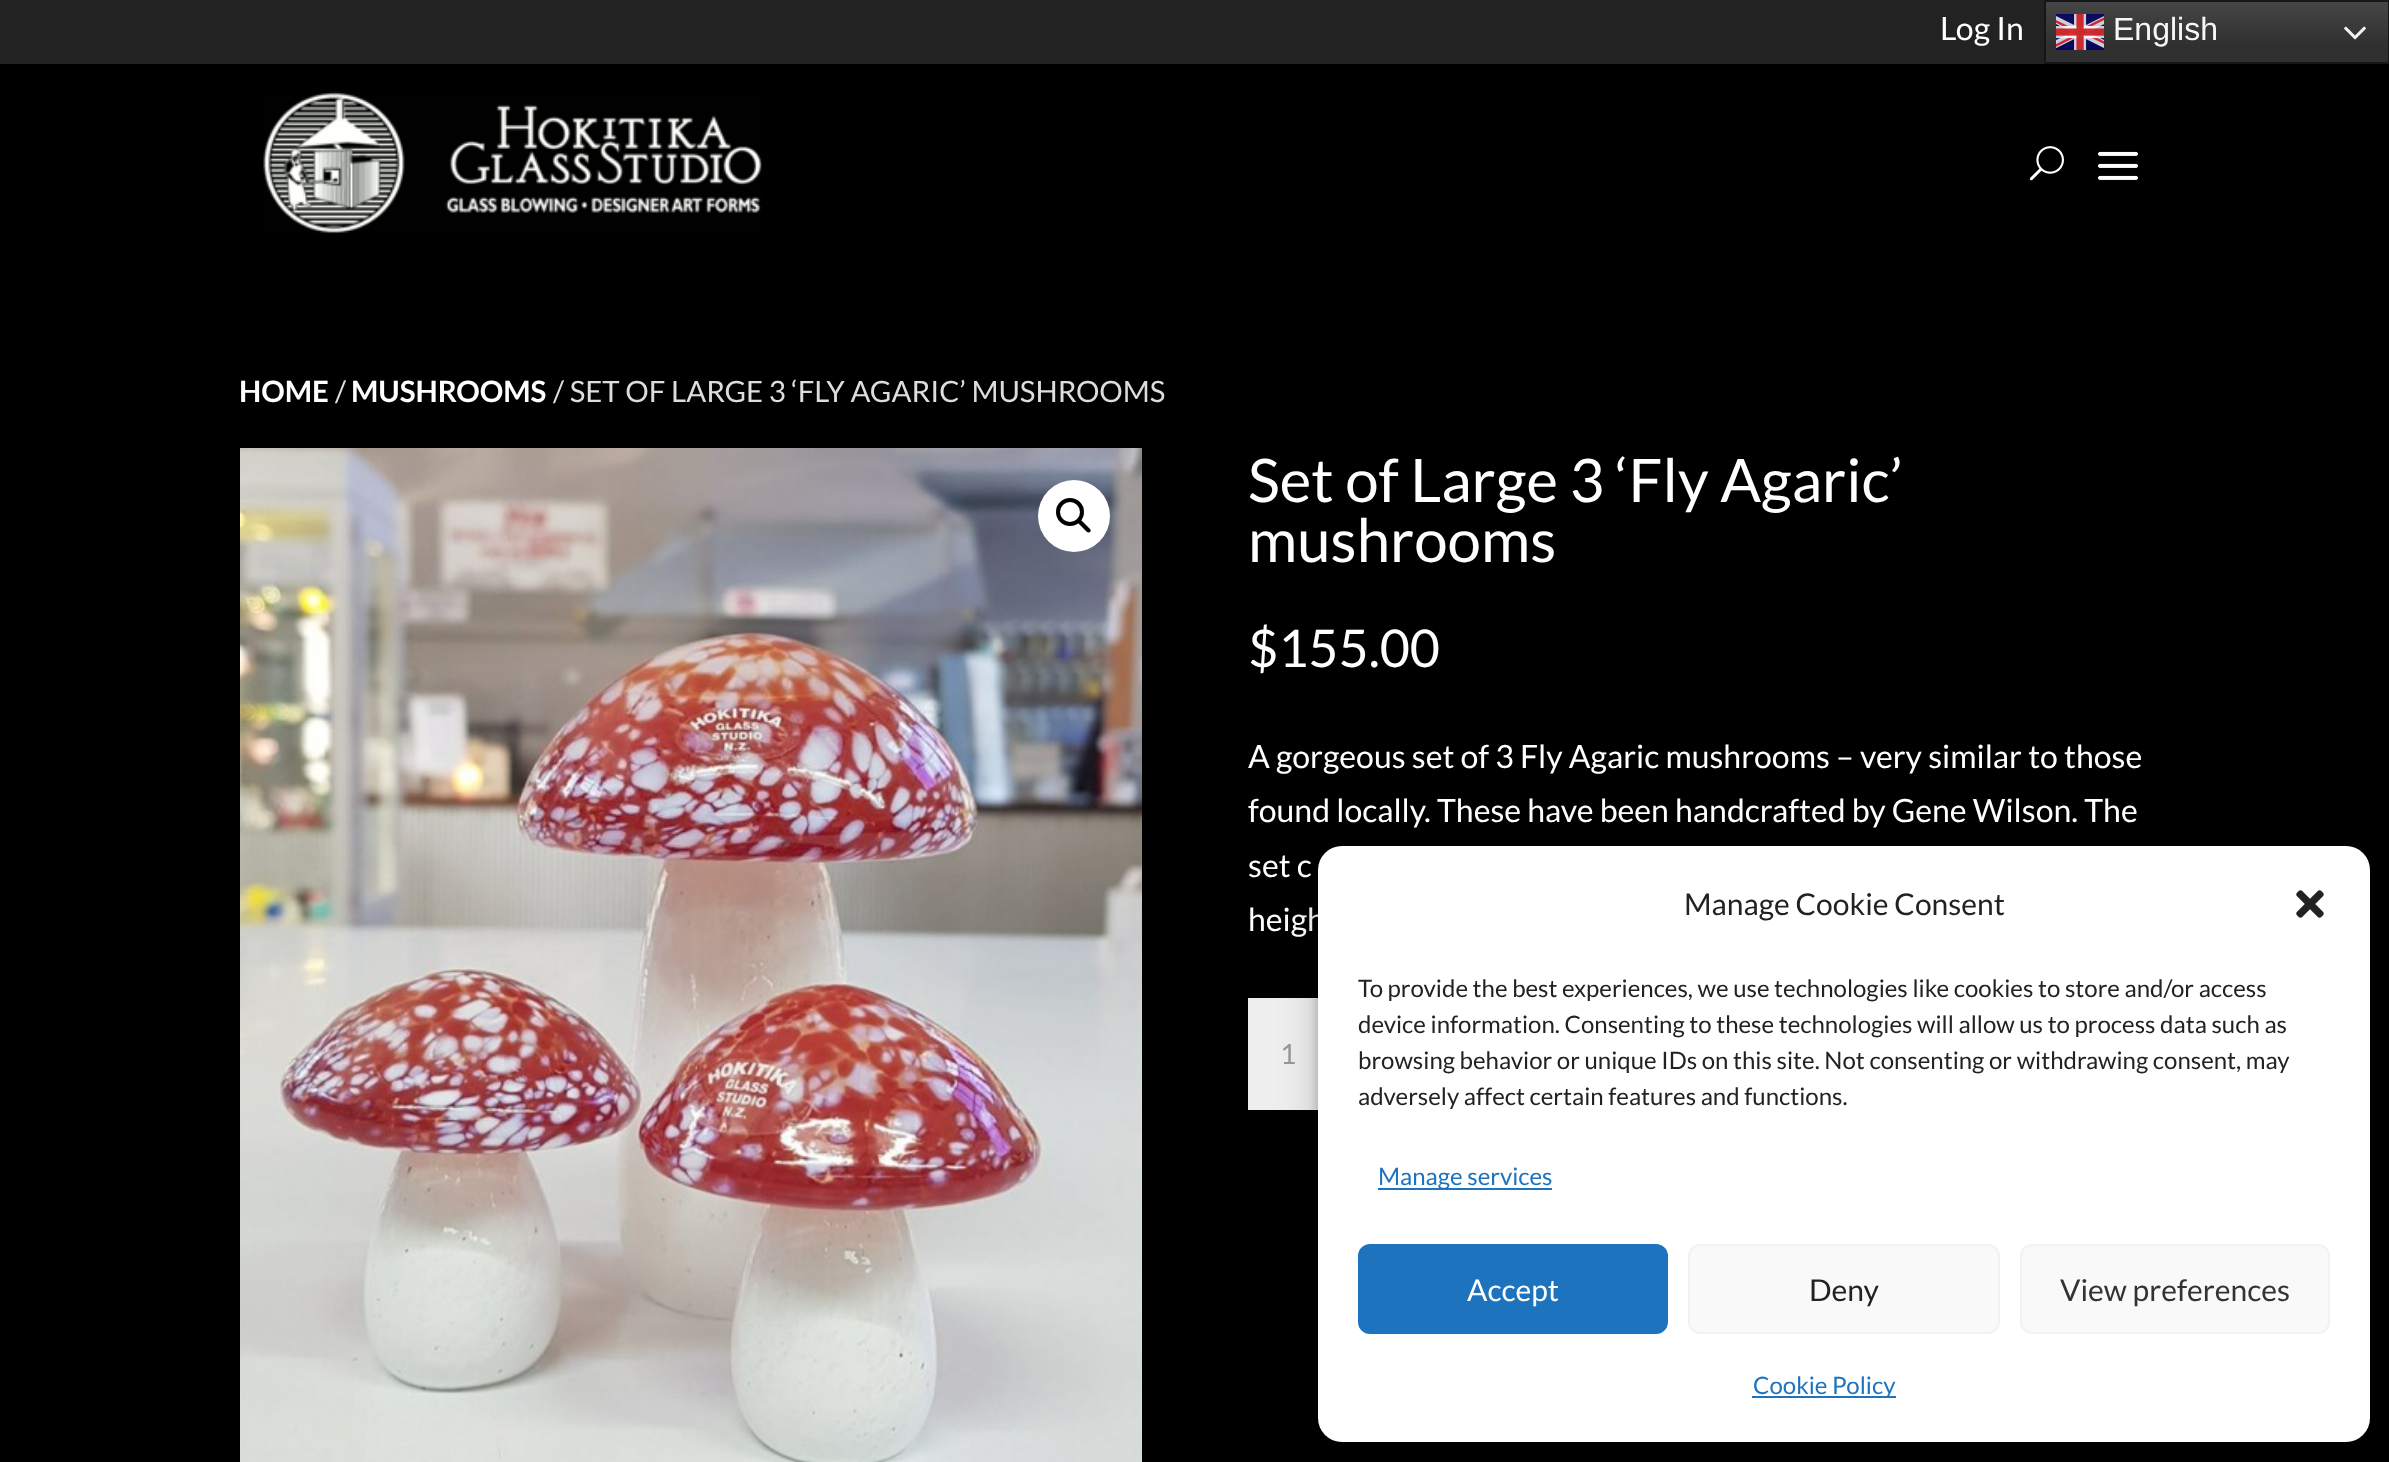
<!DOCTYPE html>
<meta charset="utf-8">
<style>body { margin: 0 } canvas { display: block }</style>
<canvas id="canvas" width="2389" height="1462"></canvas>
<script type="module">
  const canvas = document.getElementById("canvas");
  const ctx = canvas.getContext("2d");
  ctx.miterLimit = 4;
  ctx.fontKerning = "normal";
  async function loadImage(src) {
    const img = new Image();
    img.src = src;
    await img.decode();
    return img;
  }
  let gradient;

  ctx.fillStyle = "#000000";
  ctx.fillRect(0, 0, 2389, 1462);
  ctx.fillStyle = "#222222";
  ctx.fillRect(0, 0, 2044, 64);
  ctx.font = "32px Lato";
  ctx.fillStyle = "#ffffff";
  ctx.fillText("Log In", 1940, 40);
  gradient = ctx.createLinearGradient(2217, 0, 2217, 64);
  gradient.addColorStop(0, "#474747");
  gradient.addColorStop(0.7, "#303030");
  ctx.fillStyle = gradient;
  ctx.fillRect(2046, 2, 342, 60);
  ctx.strokeStyle = "#161616";
  ctx.lineWidth = 2;
  ctx.strokeRect(2045, 1, 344, 62);
  ctx.drawImage(await loadImage("img1.png"), 2056, 14, 48, 36);
  ctx.font = "32px Liberation Sans";
  ctx.fillStyle = "#f7f7f7";
  ctx.fillText("English", 2113, 40);
  ctx.drawImage(await loadImage("img2.png"), 2344, 26, 22, 14);
  ctx.drawImage(await loadImage("img3.png"), 263, 91, 500, 143);
  ctx.drawImage(await loadImage("img4.png"), 2029, 146, 35, 35);
  ctx.drawImage(await loadImage("img5.png"), 2098, 151, 40, 29);
  ctx.font = "bold 29.4px Lato";
  ctx.fillStyle = "#ffffff";
  ctx.fillText("HOME", 239, 402);
  ctx.font = "29.4px Lato";
  ctx.fillStyle = "#dddddd";
  ctx.fillText("/", 335, 402);
  ctx.font = "bold 29.4px Lato";
  ctx.fillStyle = "#ffffff";
  ctx.fillText("MUSHROOMS", 351, 402);
  ctx.font = "29.4px Lato";
  ctx.fillStyle = "#dddddd";
  ctx.fillText("/ SET OF LARGE 3 ‘FLY AGARIC’ MUSHROOMS", 553, 402);
  ctx.drawImage(await loadImage("img6.png"), 240, 448, 902, 1014);
  ctx.fillStyle = "#ffffff";
  ctx.beginPath();
  ctx.arc(1074, 516, 36, 0, Math.PI * 2);
  ctx.fill();
  ctx.beginPath();
  ctx.arc(1070, 512, 12, 0, Math.PI * 2);
  ctx.strokeStyle = "#000000";
  ctx.lineWidth = 4;
  ctx.stroke();
  ctx.fillStyle = "#000000";
  ctx.beginPath();
  ctx.moveTo(1078.5, 520.5);
  ctx.bezierCurveTo(1079.5, 520, 1081, 520, 1081.5, 520.5);
  ctx.lineTo(1090, 529);
  ctx.bezierCurveTo(1091, 530, 1091, 531, 1090, 532);
  ctx.bezierCurveTo(1089.5, 532.5, 1088, 532.5, 1087, 532);
  ctx.lineTo(1078.5, 523.5);
  ctx.bezierCurveTo(1078, 522.5, 1078, 521.5, 1078.5, 520.5);
  ctx.closePath();
  ctx.fill();
  ctx.font = "60px Lato";
  ctx.fillStyle = "#ffffff";
  ctx.fillText("Set of Large 3 ‘Fly Agaric’", 1248, 502);
  ctx.fillText("mushrooms", 1248, 562);
  ctx.font = "52px Lato";
  ctx.fillText("$155.00", 1248, 667);
  ctx.font = "32px Lato";
  ctx.fillText("A gorgeous set of 3 Fly Agaric mushrooms – very similar to those", 1248, 768);
  ctx.fillText("found locally. These have been handcrafted by Gene Wilson. The", 1248, 822);
  ctx.fillText("set c", 1248, 877);
  ctx.fillText("heigh", 1248, 931);
  ctx.fillStyle = "#eeeeee";
  ctx.fillRect(1248, 998, 70, 112);
  ctx.font = "28px Lato";
  ctx.fillStyle = "#999999";
  ctx.fillText("1", 1280, 1064);
  ctx.fillStyle = "rgba(0, 0, 0, 0.23)";
  ctx.filter = "blur(6px)";
  ctx.beginPath();
  ctx.roundRect(1318, 858, 1052, 596, 24);
  ctx.fill();
  ctx.filter = "none";
  ctx.fillStyle = "rgba(0, 0, 0, 0.19)";
  ctx.filter = "blur(20px)";
  ctx.beginPath();
  ctx.roundRect(1318, 866, 1052, 596, 24);
  ctx.fill();
  ctx.filter = "none";
  ctx.fillStyle = "#ffffff";
  ctx.beginPath();
  ctx.roundRect(1318, 846, 1052, 596, 24);
  ctx.fill();
  ctx.font = "30px Lato";
  ctx.fillStyle = "#222222";
  ctx.fillText("Manage Cookie Consent", 1684, 915);
  ctx.drawImage(await loadImage("img7.png"), 2296, 890, 28, 28);
  ctx.font = "24px Lato";
  ctx.fillText("To provide the best experiences, we use technologies like cookies to store and/or access", 1358, 997);
  ctx.fillText("device information. Consenting to these technologies will allow us to process data such as", 1358, 1033);
  ctx.fillText("browsing behavior or unique IDs on this site. Not consenting or withdrawing consent, may", 1358, 1069);
  ctx.fillText("adversely affect certain features and functions.", 1358, 1105);
  ctx.fillStyle = "#1e73be";
  ctx.fillRect(1378, 1188, 174, 2);
  ctx.fillText("Manage services", 1378, 1185);
  ctx.beginPath();
  ctx.roundRect(1359, 1245, 308, 88, 11);
  ctx.fill();
  ctx.strokeStyle = "#1e73be";
  ctx.lineWidth = 2;
  ctx.stroke();
  ctx.font = "30px Lato";
  ctx.fillStyle = "#ffffff";
  ctx.fillText("Accept", 1467, 1301);
  ctx.fillStyle = "#f9f9f9";
  ctx.beginPath();
  ctx.roundRect(1689, 1245, 310, 88, 11);
  ctx.fill();
  ctx.strokeStyle = "#f2f2f2";
  ctx.stroke();
  ctx.fillStyle = "#222222";
  ctx.fillText("Deny", 1809, 1301);
  ctx.fillStyle = "#f9f9f9";
  ctx.beginPath();
  ctx.roundRect(2021, 1245, 308, 88, 11);
  ctx.fill();
  ctx.stroke();
  ctx.fillStyle = "#333333";
  ctx.fillText("View preferences", 2060, 1301);
  ctx.fillStyle = "#1e73be";
  ctx.fillRect(1752, 1396, 144, 2);
  ctx.font = "24px Lato";
  ctx.fillText("Cookie Policy", 1753, 1394);
</script>
